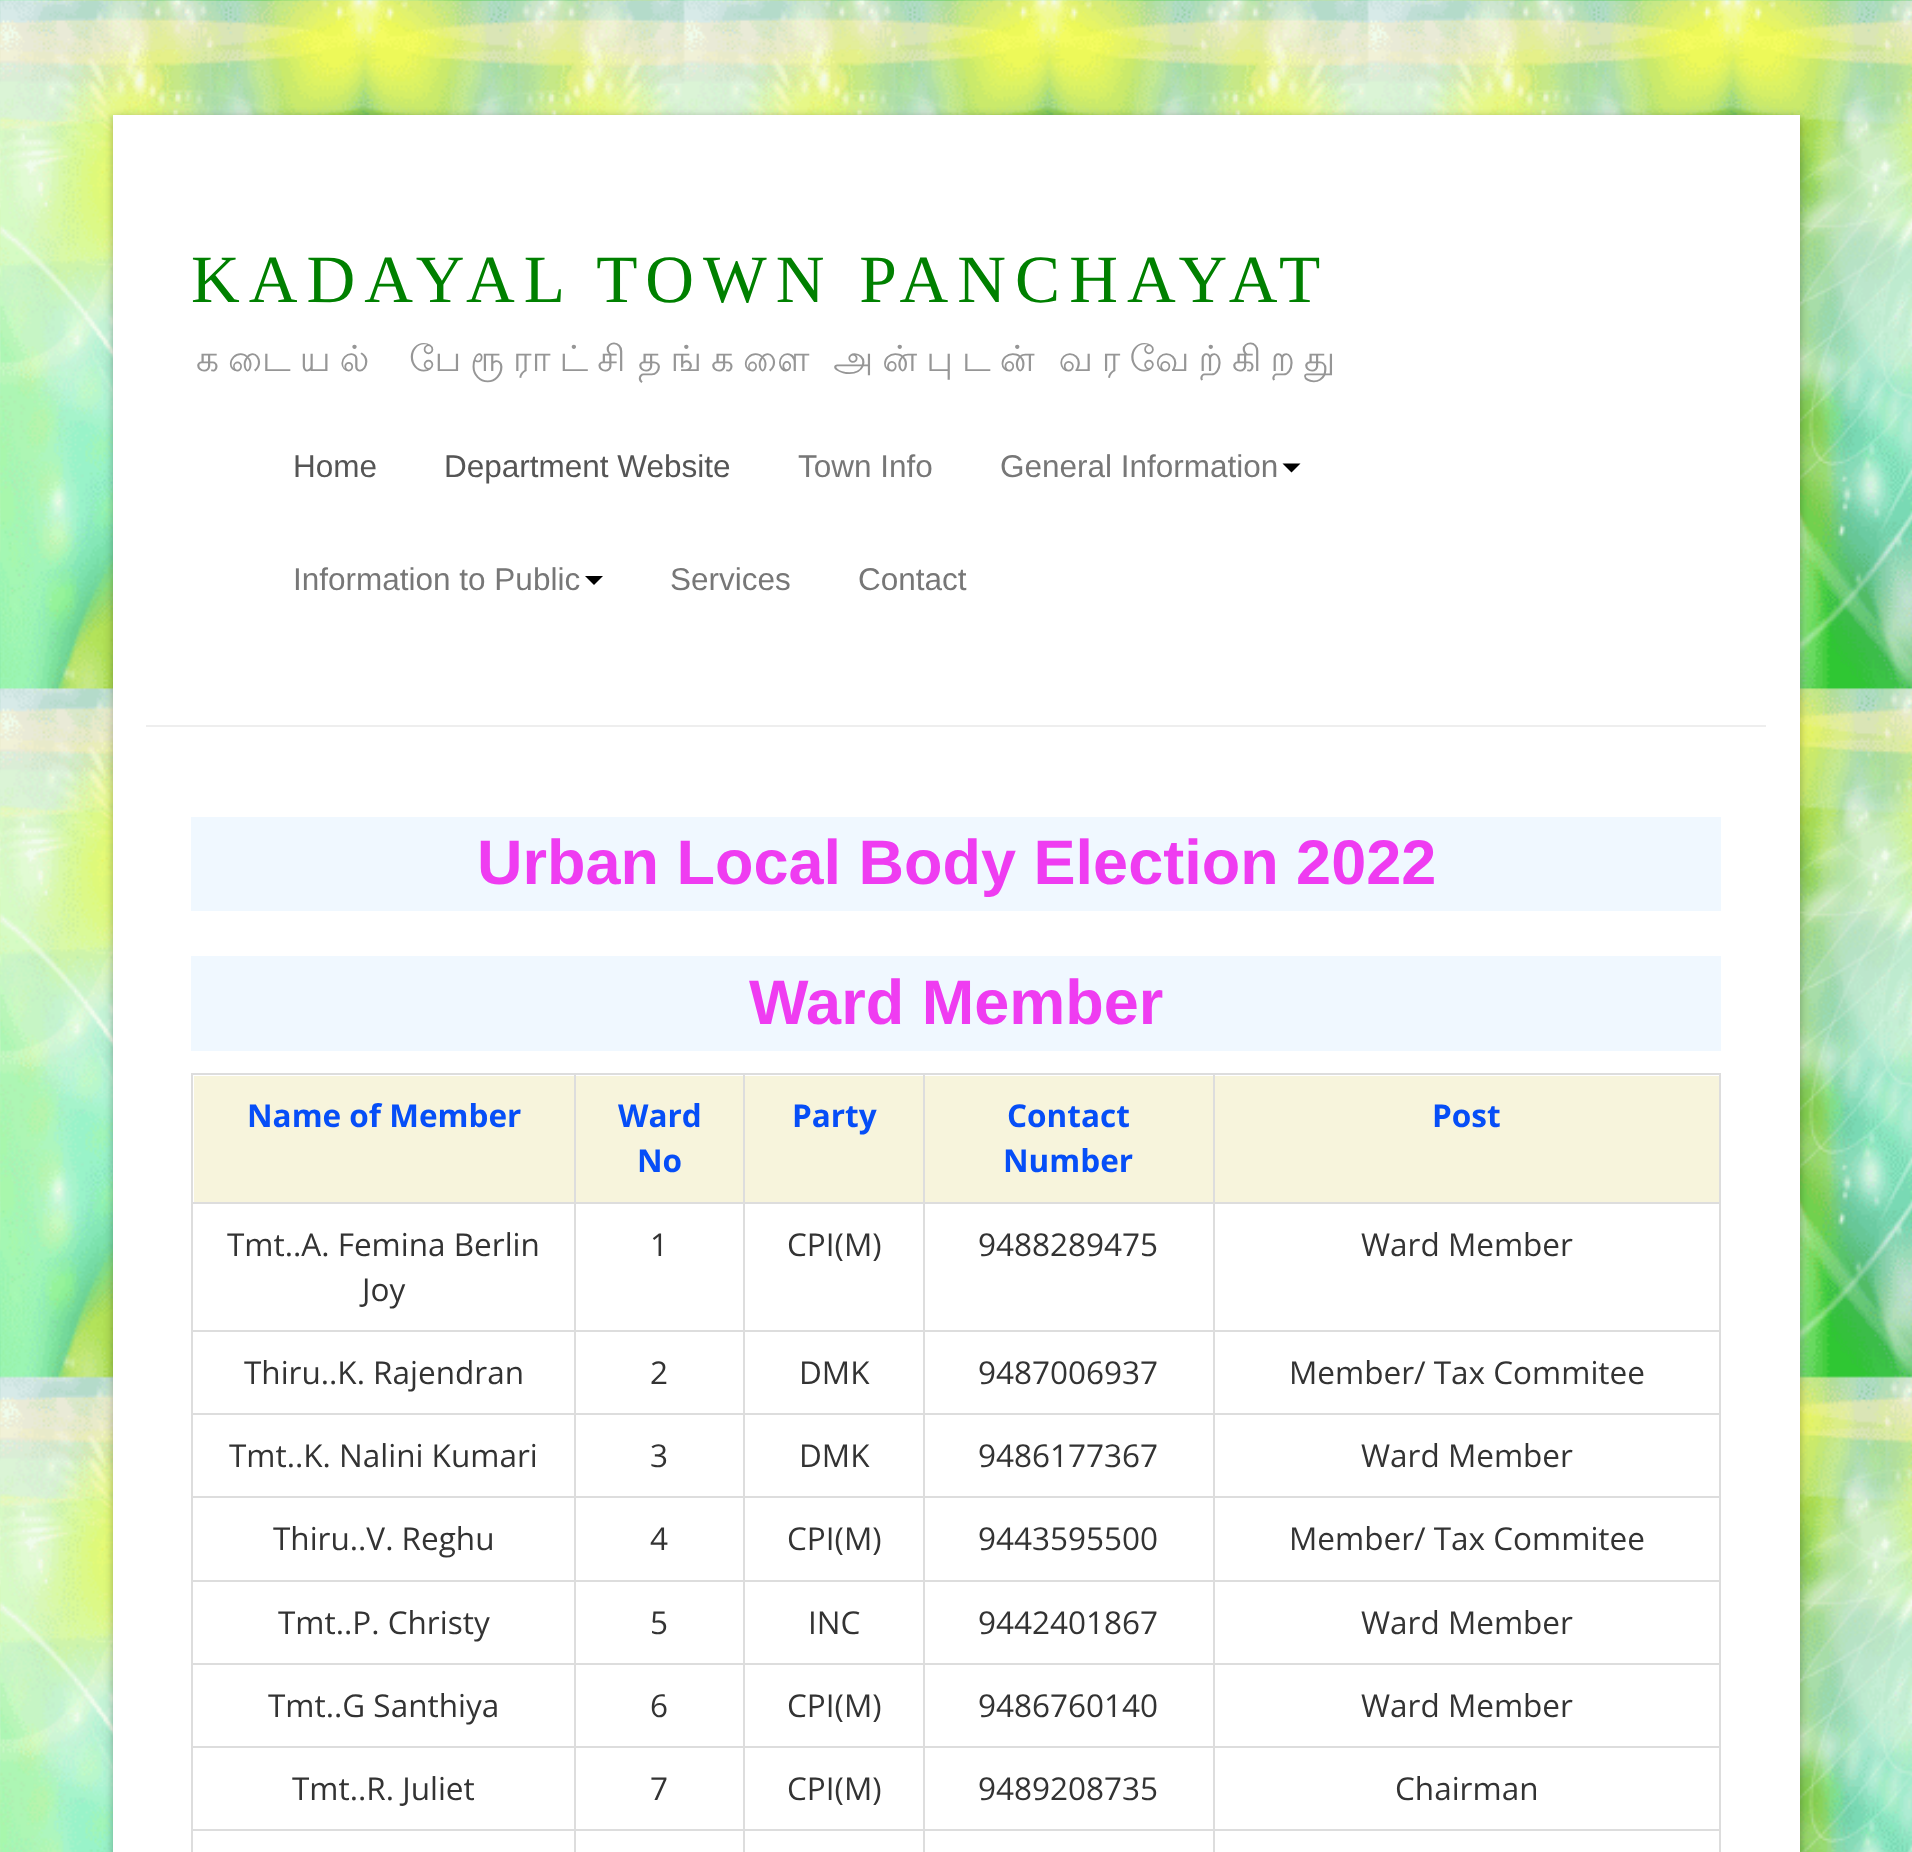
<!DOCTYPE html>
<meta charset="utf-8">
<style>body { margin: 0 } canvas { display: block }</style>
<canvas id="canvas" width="1912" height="1852"></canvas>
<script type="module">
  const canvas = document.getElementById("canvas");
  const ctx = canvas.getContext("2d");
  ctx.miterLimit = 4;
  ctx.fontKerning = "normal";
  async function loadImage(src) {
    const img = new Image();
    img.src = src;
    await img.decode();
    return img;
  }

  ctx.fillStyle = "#ffffff";
  ctx.fillRect(0, 0, 1912, 1852);
  ctx.drawImage(await loadImage("img1.png"), 0, 0, 1912, 1852);
  ctx.fillStyle = "rgba(0, 0, 0, 0.3)";
  ctx.filter = "blur(4.5px)";
  ctx.beginPath();
  ctx.rect(113, 117, 1687, 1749);
  ctx.fill();
  ctx.filter = "none";
  ctx.fillStyle = "#ffffff";
  ctx.fillRect(113, 115, 1687, 1737);
  ctx.letterSpacing = "9px";
  ctx.font = "67.5px Liberation Serif";
  ctx.fillStyle = "#008000";
  ctx.fillText("KADAYAL TOWN PANCHAYAT", 191, 302);
  ctx.font = "36px Lohit Tamil";
  ctx.fillStyle = "#969696";
  ctx.fillText("கடையல்", 196, 371);
  ctx.fillText("பேரூராட்சி", 409, 371);
  ctx.wordSpacing = "-5px";
  ctx.fillText("தங்களை அன்புடன் வரவேற்கிறது", 638, 371);
  ctx.letterSpacing = "0px";
  ctx.wordSpacing = "0px";
  ctx.font = "31.5px Liberation Sans";
  ctx.fillStyle = "#555555";
  ctx.fillText("Home", 293, 477);
  ctx.fillText("Department Website", 444, 477);
  ctx.fillStyle = "#777777";
  ctx.fillText("Town Info", 798, 477);
  ctx.fillText("General Information", 1000, 477);
  ctx.fillStyle = "#000000";
  ctx.beginPath();
  ctx.moveTo(1282.5, 463.5);
  ctx.lineTo(1300.5, 463.5);
  ctx.lineTo(1291.5, 472.5);
  ctx.closePath();
  ctx.fill();
  ctx.fillStyle = "#777777";
  ctx.fillText("Information to Public", 293, 590);
  ctx.fillStyle = "#000000";
  ctx.beginPath();
  ctx.moveTo(585, 576);
  ctx.lineTo(603, 576);
  ctx.lineTo(594, 585);
  ctx.closePath();
  ctx.fill();
  ctx.fillStyle = "#777777";
  ctx.fillText("Services", 670, 590);
  ctx.fillText("Contact", 858, 590);
  ctx.fillStyle = "#eeeeee";
  ctx.fillRect(146, 725, 1620, 2);
  ctx.fillStyle = "#f0f8ff";
  ctx.fillRect(191, 817, 1530, 94);
  ctx.font = "bold 63px Liberation Sans";
  ctx.fillStyle = "#ef3cf1";
  ctx.fillText("Urban Local Body Election 2022", 477, 884);
  ctx.fillStyle = "#f0f8ff";
  ctx.fillRect(191, 956, 1530, 95);
  ctx.fillStyle = "#ef3cf1";
  ctx.fillText("Ward Member", 749, 1024);
  ctx.fillStyle = "#dddddd";
  ctx.fillRect(191, 1073, 1530, 2);
  ctx.fillRect(1719, 1073, 2, 779);
  ctx.fillRect(191, 1073, 2, 779);
  ctx.fillStyle = "#f7f4dc";
  ctx.fillRect(194, 1076, 1525, 126);
  ctx.font = "bold 31.5px Open Sans";
  ctx.fillStyle = "#064ef7";
  ctx.fillText("Name of Member", 247, 1127);
  ctx.fillStyle = "#dddddd";
  ctx.fillRect(1213, 1202, 508, 2);
  ctx.fillRect(1213, 1330, 508, 2);
  ctx.fillRect(1213, 1413, 508, 2);
  ctx.fillRect(1213, 1496, 508, 2);
  ctx.fillRect(1213, 1580, 508, 2);
  ctx.fillRect(1213, 1663, 508, 2);
  ctx.fillRect(1213, 1746, 508, 2);
  ctx.fillRect(1213, 1829, 508, 2);
  ctx.fillRect(1213, 1829, 2, 23);
  ctx.fillRect(923, 1829, 292, 2);
  ctx.fillRect(1213, 1746, 2, 86);
  ctx.fillRect(923, 1746, 292, 2);
  ctx.fillRect(1213, 1663, 2, 85);
  ctx.fillRect(923, 1663, 292, 2);
  ctx.fillRect(1213, 1580, 2, 85);
  ctx.fillRect(923, 1580, 292, 2);
  ctx.fillRect(1213, 1496, 2, 86);
  ctx.fillRect(923, 1496, 292, 2);
  ctx.fillRect(1213, 1413, 2, 86);
  ctx.fillRect(923, 1413, 292, 2);
  ctx.fillRect(1213, 1330, 2, 85);
  ctx.fillRect(923, 1330, 292, 2);
  ctx.fillRect(1213, 1202, 2, 130);
  ctx.fillRect(923, 1202, 292, 2);
  ctx.fillRect(923, 1829, 2, 23);
  ctx.fillRect(743, 1829, 182, 2);
  ctx.fillRect(923, 1746, 2, 86);
  ctx.fillRect(743, 1746, 182, 2);
  ctx.fillRect(923, 1663, 2, 85);
  ctx.fillRect(743, 1663, 182, 2);
  ctx.fillRect(923, 1580, 2, 85);
  ctx.fillRect(743, 1580, 182, 2);
  ctx.fillRect(923, 1496, 2, 86);
  ctx.fillRect(743, 1496, 182, 2);
  ctx.fillRect(923, 1413, 2, 86);
  ctx.fillRect(743, 1413, 182, 2);
  ctx.fillRect(923, 1330, 2, 85);
  ctx.fillRect(743, 1330, 182, 2);
  ctx.fillRect(923, 1202, 2, 130);
  ctx.fillRect(743, 1202, 182, 2);
  ctx.fillRect(743, 1829, 2, 23);
  ctx.fillRect(574, 1829, 171, 2);
  ctx.fillRect(743, 1746, 2, 86);
  ctx.fillRect(574, 1746, 171, 2);
  ctx.fillRect(743, 1663, 2, 85);
  ctx.fillRect(574, 1663, 171, 2);
  ctx.fillRect(743, 1580, 2, 85);
  ctx.fillRect(574, 1580, 171, 2);
  ctx.fillRect(743, 1496, 2, 86);
  ctx.fillRect(574, 1496, 171, 2);
  ctx.fillRect(743, 1413, 2, 86);
  ctx.fillRect(574, 1413, 171, 2);
  ctx.fillRect(743, 1330, 2, 85);
  ctx.fillRect(574, 1330, 171, 2);
  ctx.fillRect(743, 1202, 2, 130);
  ctx.fillRect(574, 1202, 171, 2);
  ctx.fillRect(574, 1829, 2, 23);
  ctx.fillRect(191, 1829, 385, 2);
  ctx.fillRect(574, 1746, 2, 86);
  ctx.fillRect(191, 1746, 385, 2);
  ctx.fillRect(574, 1663, 2, 85);
  ctx.fillRect(191, 1663, 385, 2);
  ctx.fillRect(574, 1580, 2, 85);
  ctx.fillRect(191, 1580, 385, 2);
  ctx.fillRect(574, 1496, 2, 86);
  ctx.fillRect(191, 1496, 385, 2);
  ctx.fillRect(574, 1413, 2, 86);
  ctx.fillRect(191, 1413, 385, 2);
  ctx.fillRect(574, 1330, 2, 85);
  ctx.fillRect(191, 1330, 385, 2);
  ctx.fillRect(574, 1202, 2, 130);
  ctx.fillRect(191, 1202, 385, 2);
  ctx.fillRect(574, 1073, 2, 131);
  ctx.fillStyle = "#064ef7";
  ctx.fillText("Ward", 618, 1127);
  ctx.fillText("No", 637, 1172);
  ctx.fillStyle = "#dddddd";
  ctx.fillRect(743, 1073, 2, 131);
  ctx.fillStyle = "#064ef7";
  ctx.fillText("Party", 792, 1127);
  ctx.fillStyle = "#dddddd";
  ctx.fillRect(923, 1073, 2, 131);
  ctx.fillStyle = "#064ef7";
  ctx.fillText("Contact", 1007, 1127);
  ctx.fillText("Number", 1003, 1172);
  ctx.fillStyle = "#dddddd";
  ctx.fillRect(1213, 1073, 2, 131);
  ctx.fillStyle = "#064ef7";
  ctx.fillText("Post", 1432, 1127);
  ctx.font = "31.5px Open Sans";
  ctx.fillStyle = "#333333";
  ctx.fillText("Tmt..A. Femina Berlin", 227, 1256);
  ctx.fillText("Joy", 362, 1301);
  ctx.fillText("1", 650, 1256);
  ctx.fillText("CPI(M)", 787, 1256);
  ctx.fillText("9488289475", 978, 1256);
  ctx.fillText("Ward Member", 1361, 1256);
  ctx.fillText("Thiru..K. Rajendran", 244, 1384);
  ctx.fillText("2", 650, 1384);
  ctx.fillText("DMK", 799, 1384);
  ctx.fillText("9487006937", 978, 1384);
  ctx.fillText("Member/ Tax Commitee", 1289, 1384);
  ctx.fillText("Tmt..K. Nalini Kumari", 229, 1467);
  ctx.fillText("3", 650, 1467);
  ctx.fillText("DMK", 799, 1467);
  ctx.fillText("9486177367", 978, 1467);
  ctx.fillText("Ward Member", 1361, 1467);
  ctx.fillText("Thiru..V. Reghu", 273, 1550);
  ctx.fillText("4", 650, 1550);
  ctx.fillText("CPI(M)", 787, 1550);
  ctx.fillText("9443595500", 978, 1550);
  ctx.fillText("Member/ Tax Commitee", 1289, 1550);
  ctx.fillText("Tmt..P. Christy", 278, 1634);
  ctx.fillText("5", 650, 1634);
  ctx.fillText("INC", 808, 1634);
  ctx.fillText("9442401867", 978, 1634);
  ctx.fillText("Ward Member", 1361, 1634);
  ctx.fillText("Tmt..G Santhiya", 268, 1717);
  ctx.fillText("6", 650, 1717);
  ctx.fillText("CPI(M)", 787, 1717);
  ctx.fillText("9486760140", 978, 1717);
  ctx.fillText("Ward Member", 1361, 1717);
  ctx.fillText("Tmt..R. Juliet", 292, 1800);
  ctx.fillText("7", 650, 1800);
  ctx.fillText("CPI(M)", 787, 1800);
  ctx.fillText("9489208735", 978, 1800);
  ctx.fillText("Chairman", 1395, 1800);
</script>
